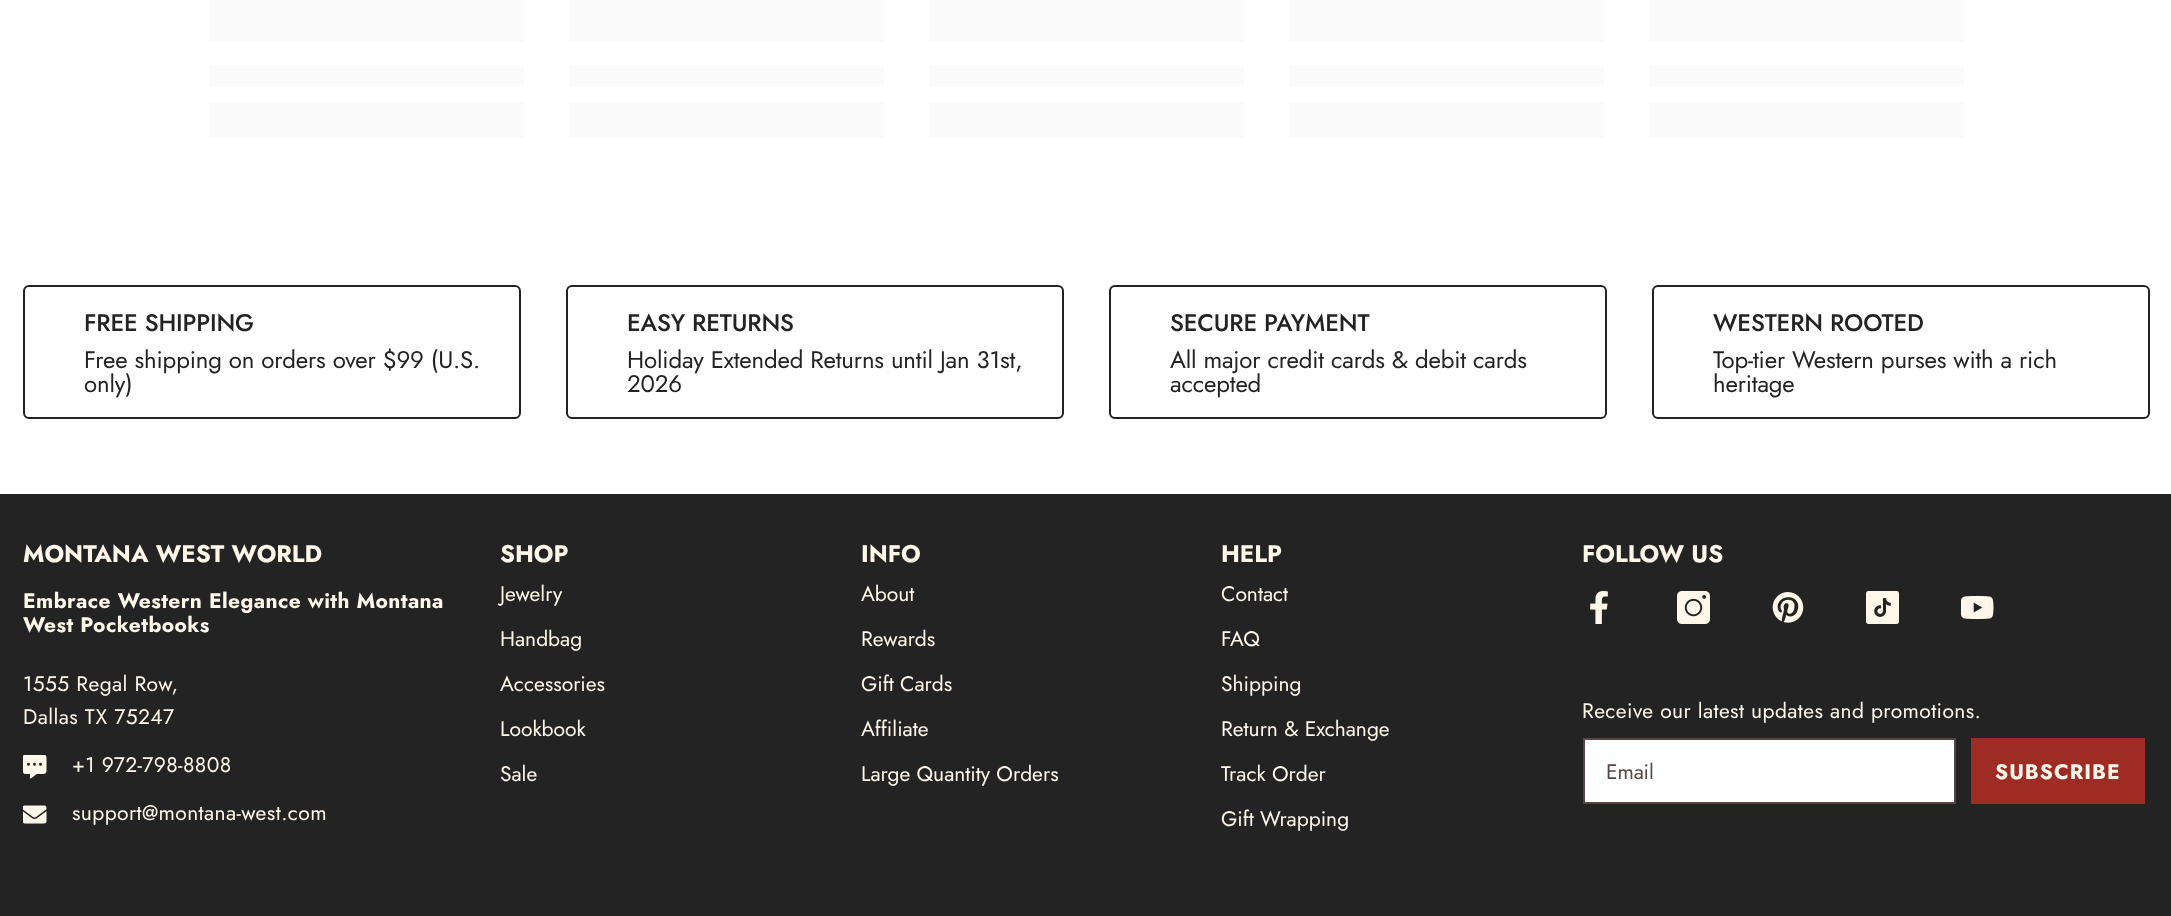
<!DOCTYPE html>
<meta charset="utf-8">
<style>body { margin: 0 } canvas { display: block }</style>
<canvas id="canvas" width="2171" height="916"></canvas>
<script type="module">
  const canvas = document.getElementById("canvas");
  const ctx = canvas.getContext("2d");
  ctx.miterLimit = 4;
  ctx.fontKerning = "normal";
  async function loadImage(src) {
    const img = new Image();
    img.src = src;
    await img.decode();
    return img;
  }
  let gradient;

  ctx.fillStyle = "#ffffff";
  ctx.fillRect(0, 0, 2171, 916);
  ctx.fillStyle = "#fafafa";
  ctx.fillRect(209, 0, 315, 42);
  gradient = ctx.createLinearGradient(-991, 76, 2009, 76);
  gradient.addColorStop(0.04, "#fafafa");
  gradient.addColorStop(0.25, "#f1f2f3");
  gradient.addColorStop(0.36, "#fafafa");
  ctx.fillStyle = gradient;
  ctx.fillRect(209, 65, 315, 22);
  gradient = ctx.createLinearGradient(-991, 120, 2009, 120);
  gradient.addColorStop(0.04, "#fafafa");
  gradient.addColorStop(0.25, "#f1f2f3");
  gradient.addColorStop(0.36, "#fafafa");
  ctx.fillStyle = gradient;
  ctx.fillRect(209, 102, 315, 36);
  ctx.fillStyle = "#fafafa";
  ctx.fillRect(569, 0, 315, 42);
  gradient = ctx.createLinearGradient(-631, 76, 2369, 76);
  gradient.addColorStop(0.04, "#fafafa");
  gradient.addColorStop(0.25, "#f1f2f3");
  gradient.addColorStop(0.36, "#fafafa");
  ctx.fillStyle = gradient;
  ctx.fillRect(569, 65, 315, 22);
  gradient = ctx.createLinearGradient(-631, 120, 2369, 120);
  gradient.addColorStop(0.04, "#fafafa");
  gradient.addColorStop(0.25, "#f1f2f3");
  gradient.addColorStop(0.36, "#fafafa");
  ctx.fillStyle = gradient;
  ctx.fillRect(569, 102, 315, 36);
  ctx.fillStyle = "#fafafa";
  ctx.fillRect(929, 0, 315, 42);
  gradient = ctx.createLinearGradient(-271, 76, 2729, 76);
  gradient.addColorStop(0.04, "#fafafa");
  gradient.addColorStop(0.25, "#f1f2f3");
  gradient.addColorStop(0.36, "#fafafa");
  ctx.fillStyle = gradient;
  ctx.fillRect(929, 65, 315, 22);
  gradient = ctx.createLinearGradient(-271, 120, 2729, 120);
  gradient.addColorStop(0.04, "#fafafa");
  gradient.addColorStop(0.25, "#f1f2f3");
  gradient.addColorStop(0.36, "#fafafa");
  ctx.fillStyle = gradient;
  ctx.fillRect(929, 102, 315, 36);
  ctx.fillStyle = "#fafafa";
  ctx.fillRect(1289, 0, 315, 42);
  gradient = ctx.createLinearGradient(89, 76, 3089, 76);
  gradient.addColorStop(0.04, "#fafafa");
  gradient.addColorStop(0.25, "#f1f2f3");
  gradient.addColorStop(0.36, "#fafafa");
  ctx.fillStyle = gradient;
  ctx.fillRect(1289, 65, 315, 22);
  gradient = ctx.createLinearGradient(89, 120, 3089, 120);
  gradient.addColorStop(0.04, "#fafafa");
  gradient.addColorStop(0.25, "#f1f2f3");
  gradient.addColorStop(0.36, "#fafafa");
  ctx.fillStyle = gradient;
  ctx.fillRect(1289, 102, 315, 36);
  ctx.fillStyle = "#fafafa";
  ctx.fillRect(1649, 0, 315, 42);
  gradient = ctx.createLinearGradient(449, 76, 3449, 76);
  gradient.addColorStop(0.04, "#fafafa");
  gradient.addColorStop(0.25, "#f1f2f3");
  gradient.addColorStop(0.36, "#fafafa");
  ctx.fillStyle = gradient;
  ctx.fillRect(1649, 65, 315, 22);
  gradient = ctx.createLinearGradient(449, 120, 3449, 120);
  gradient.addColorStop(0.04, "#fafafa");
  gradient.addColorStop(0.25, "#f1f2f3");
  gradient.addColorStop(0.36, "#fafafa");
  ctx.fillStyle = gradient;
  ctx.fillRect(1649, 102, 315, 36);
  ctx.beginPath();
  ctx.roundRect(24, 286, 496, 132, 5);
  ctx.strokeStyle = "#232323";
  ctx.lineWidth = 2;
  ctx.stroke();
  ctx.letterSpacing = "-0.15px";
  ctx.font = "500 24px Jost";
  ctx.fillStyle = "#232323";
  ctx.fillText("FREE SHIPPING", 84, 331);
  ctx.font = "24px Jost";
  ctx.fillText("Free shipping on orders over $99 (U.S.", 84, 368);
  ctx.fillText("only)", 84, 392);
  ctx.beginPath();
  ctx.roundRect(567, 286, 496, 132, 5);
  ctx.stroke();
  ctx.font = "500 24px Jost";
  ctx.fillText("EASY RETURNS", 627, 331);
  ctx.font = "24px Jost";
  ctx.fillText("Holiday Extended Returns until Jan 31st,", 627, 368);
  ctx.fillText("2026", 627, 392);
  ctx.beginPath();
  ctx.roundRect(1110, 286, 496, 132, 5);
  ctx.stroke();
  ctx.font = "500 24px Jost";
  ctx.fillText("SECURE PAYMENT", 1170, 331);
  ctx.font = "24px Jost";
  ctx.fillText("All major credit cards & debit cards", 1170, 368);
  ctx.fillText("accepted", 1170, 392);
  ctx.beginPath();
  ctx.roundRect(1653, 286, 496, 132, 5);
  ctx.stroke();
  ctx.font = "500 24px Jost";
  ctx.fillText("WESTERN ROOTED", 1713, 331);
  ctx.font = "24px Jost";
  ctx.fillText("Top-tier Western purses with a rich", 1713, 368);
  ctx.fillText("heritage", 1713, 392);
  ctx.fillRect(0, 494, 2171, 422);
  ctx.letterSpacing = "0px";
  ctx.font = "bold 24px Jost";
  ctx.fillStyle = "#fff8ea";
  ctx.fillText("MONTANA WEST WORLD", 23, 562);
  ctx.letterSpacing = "0.4px";
  ctx.font = "bold 21px Jost";
  ctx.fillText("Embrace Western Elegance with Montana", 23, 608);
  ctx.fillText("West Pocketbooks", 23, 632);
  ctx.font = "21px Jost";
  ctx.fillText("1555 Regal Row,", 23, 691);
  ctx.fillText("Dallas TX 75247", 23, 724);
  ctx.drawImage(await loadImage("img1.png"), 23, 755, 24, 24);
  ctx.fillText("+1 972-798-8808", 72, 772);
  ctx.drawImage(await loadImage("img2.png"), 23, 805, 24, 19);
  ctx.fillText("support@montana-west.com", 72, 820);
  ctx.letterSpacing = "0px";
  ctx.font = "bold 24px Jost";
  ctx.fillText("SHOP", 500, 562);
  ctx.font = "21px Jost";
  ctx.fillText("Jewelry", 500, 601);
  ctx.fillText("Handbag", 500, 646);
  ctx.fillText("Accessories", 500, 691);
  ctx.fillText("Lookbook", 500, 736);
  ctx.fillText("Sale", 500, 781);
  ctx.font = "bold 24px Jost";
  ctx.fillText("INFO", 861, 562);
  ctx.font = "21px Jost";
  ctx.fillText("About", 861, 601);
  ctx.fillText("Rewards", 861, 646);
  ctx.fillText("Gift Cards", 861, 691);
  ctx.fillText("Affiliate", 861, 736);
  ctx.fillText("Large Quantity Orders", 861, 781);
  ctx.font = "bold 24px Jost";
  ctx.fillText("HELP", 1221, 562);
  ctx.font = "21px Jost";
  ctx.fillText("Contact", 1221, 601);
  ctx.fillText("FAQ", 1221, 646);
  ctx.fillText("Shipping", 1221, 691);
  ctx.fillText("Return & Exchange", 1221, 736);
  ctx.fillText("Track Order", 1221, 781);
  ctx.fillText("Gift Wrapping", 1221, 826);
  ctx.font = "bold 24px Jost";
  ctx.fillText("FOLLOW US", 1582, 562);
  ctx.drawImage(await loadImage("img3.png"), 1590, 591, 18, 33);
  ctx.drawImage(await loadImage("img4.png"), 1677, 591, 33, 33);
  ctx.drawImage(await loadImage("img5.png"), 1772, 592, 32, 31);
  ctx.drawImage(await loadImage("img6.png"), 1866, 591, 33, 33);
  ctx.drawImage(await loadImage("img7.png"), 1961, 595, 33, 25);
  ctx.letterSpacing = "0.4px";
  ctx.font = "21px Jost";
  ctx.fillText("Receive our latest updates and promotions.", 1582, 718);
  ctx.fillStyle = "#ffffff";
  ctx.beginPath();
  ctx.rect(1584, 739, 371, 64);
  ctx.fill();
  ctx.strokeStyle = "#594545";
  ctx.stroke();
  ctx.letterSpacing = "-0.15px";
  ctx.fillStyle = "#594545";
  ctx.fillText("Email", 1606, 779);
  ctx.fillStyle = "#9f2b25";
  ctx.fillRect(1971, 738, 174, 66);
  ctx.letterSpacing = "1px";
  ctx.font = "bold 21px Jost";
  ctx.fillStyle = "#fff8ea";
  ctx.fillText("SUBSCRIBE", 1995, 779);
</script>
